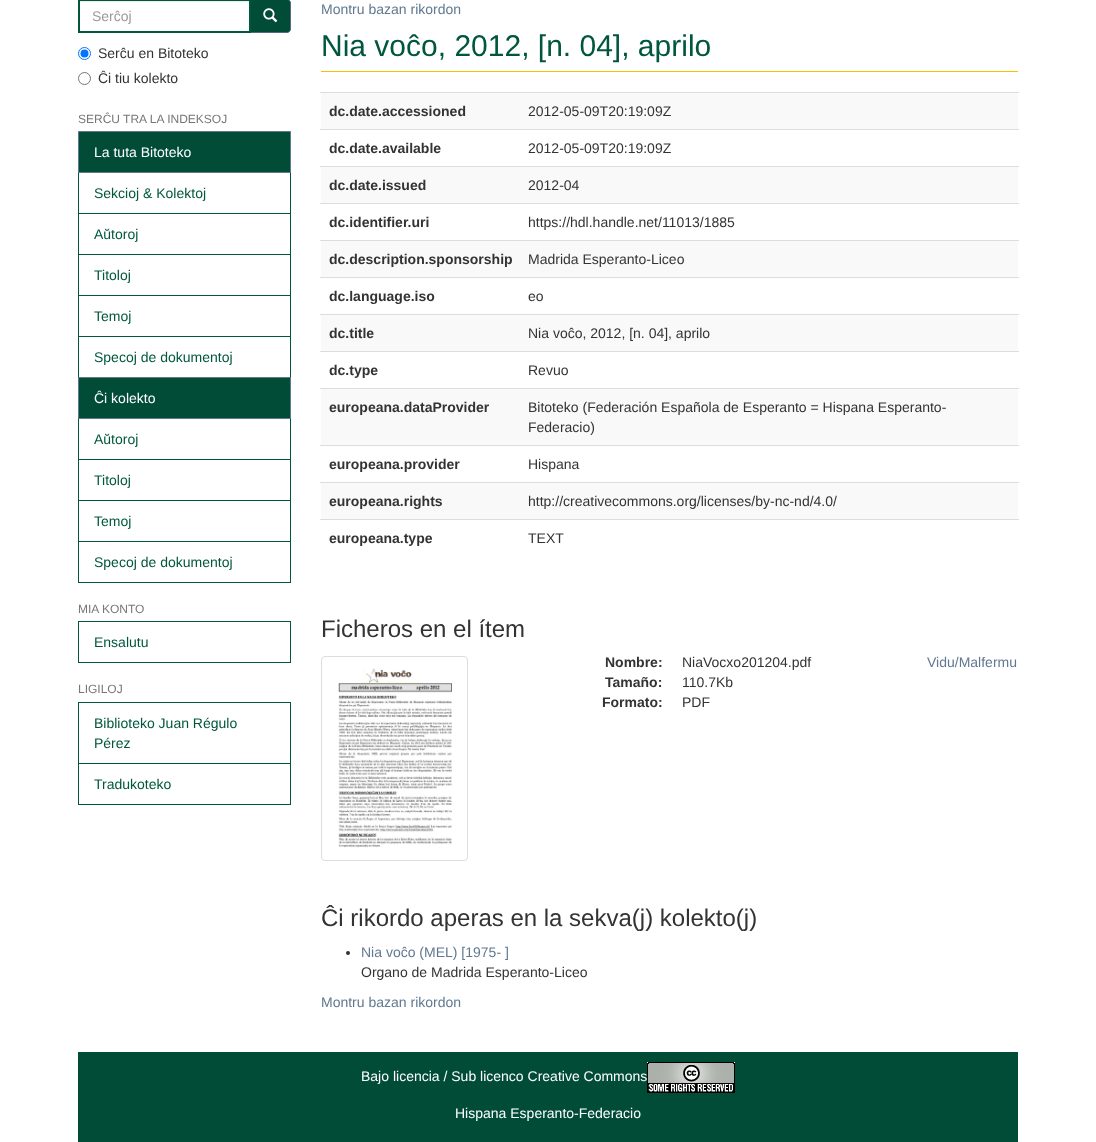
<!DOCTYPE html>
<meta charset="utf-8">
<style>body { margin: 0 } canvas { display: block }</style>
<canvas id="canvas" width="1096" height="1142"></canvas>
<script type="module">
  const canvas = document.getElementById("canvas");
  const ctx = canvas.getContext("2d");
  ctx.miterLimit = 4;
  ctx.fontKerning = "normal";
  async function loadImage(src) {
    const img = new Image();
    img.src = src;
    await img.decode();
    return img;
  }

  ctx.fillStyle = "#ffffff";
  ctx.fillRect(0, 0, 1096, 1142);
  ctx.fillStyle = "#ececec";
  ctx.fillRect(80, 1, 169, 1);
  ctx.fillStyle = "#004c37";
  ctx.beginPath();
  ctx.moveTo(250.5, -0.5);
  ctx.lineTo(287, -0.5);
  ctx.bezierCurveTo(289, -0.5, 290.5, 1, 290.5, 3);
  ctx.lineTo(290.5, 29);
  ctx.bezierCurveTo(290.5, 31, 289, 32.5, 287, 32.5);
  ctx.lineTo(250.5, 32.5);
  ctx.closePath();
  ctx.fill();
  ctx.strokeStyle = "#566b81";
  ctx.stroke();
  ctx.strokeStyle = "#01573e";
  ctx.lineWidth = 2;
  ctx.strokeRect(79, 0, 171, 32);
  ctx.font = "14px Liberation Sans";
  ctx.fillStyle = "#999999";
  ctx.fillText("Serĉoj", 92, 21);
  ctx.drawImage(await loadImage("img1.png"), 263, 8, 15, 15);
  ctx.beginPath();
  ctx.arc(84.5, 53.5, 6, 0, Math.PI * 2);
  ctx.strokeStyle = "#0075ff";
  ctx.lineWidth = 1;
  ctx.stroke();
  ctx.fillStyle = "#0075ff";
  ctx.beginPath();
  ctx.arc(84.5, 53.5, 4, 0, Math.PI * 2);
  ctx.fill();
  ctx.fillStyle = "#333333";
  ctx.fillText("Serĉu en Bitoteko", 98, 58);
  ctx.beginPath();
  ctx.arc(84.5, 78.5, 6, 0, Math.PI * 2);
  ctx.strokeStyle = "#767676";
  ctx.stroke();
  ctx.fillText("Ĉi tiu kolekto", 98, 83);
  ctx.font = "12px Liberation Sans";
  ctx.fillStyle = "#777777";
  ctx.fillText("SERĈU TRA LA INDEKSOJ", 78, 123);
  ctx.strokeStyle = "#01573e";
  ctx.strokeRect(78.5, 172.5, 212, 41);
  ctx.fillStyle = "#004c37";
  ctx.beginPath();
  ctx.rect(78.5, 131.5, 212, 41);
  ctx.fill();
  ctx.strokeStyle = "#607890";
  ctx.stroke();
  ctx.font = "14px Liberation Sans";
  ctx.fillStyle = "#ffffff";
  ctx.fillText("La tuta Bitoteko", 94, 157);
  ctx.fillStyle = "#01573e";
  ctx.fillText("Sekcioj & Kolektoj", 94, 198);
  ctx.strokeStyle = "#01573e";
  ctx.strokeRect(78.5, 213.5, 212, 41);
  ctx.fillText("Aŭtoroj", 94, 239);
  ctx.strokeRect(78.5, 254.5, 212, 41);
  ctx.fillText("Titoloj", 94, 280);
  ctx.strokeRect(78.5, 295.5, 212, 41);
  ctx.fillText("Temoj", 94, 321);
  ctx.strokeRect(78.5, 336.5, 212, 41);
  ctx.fillText("Specoj de dokumentoj", 94, 362);
  ctx.strokeRect(78.5, 418.5, 212, 41);
  ctx.fillStyle = "#004c37";
  ctx.beginPath();
  ctx.rect(78.5, 377.5, 212, 41);
  ctx.fill();
  ctx.strokeStyle = "#607890";
  ctx.stroke();
  ctx.fillStyle = "#ffffff";
  ctx.fillText("Ĉi kolekto", 94, 403);
  ctx.fillStyle = "#01573e";
  ctx.fillText("Aŭtoroj", 94, 444);
  ctx.strokeStyle = "#01573e";
  ctx.strokeRect(78.5, 459.5, 212, 41);
  ctx.fillText("Titoloj", 94, 485);
  ctx.strokeRect(78.5, 500.5, 212, 41);
  ctx.fillText("Temoj", 94, 526);
  ctx.strokeRect(78.5, 541.5, 212, 41);
  ctx.fillText("Specoj de dokumentoj", 94, 567);
  ctx.font = "12px Liberation Sans";
  ctx.fillStyle = "#777777";
  ctx.fillText("MIA KONTO", 78, 613);
  ctx.strokeRect(78.5, 621.5, 212, 41);
  ctx.font = "14px Liberation Sans";
  ctx.fillStyle = "#01573e";
  ctx.fillText("Ensalutu", 94, 647);
  ctx.font = "12px Liberation Sans";
  ctx.fillStyle = "#777777";
  ctx.fillText("LIGILOJ", 78, 693);
  ctx.strokeRect(78.5, 702.5, 212, 61);
  ctx.font = "14px Liberation Sans";
  ctx.fillStyle = "#01573e";
  ctx.fillText("Biblioteko Juan Régulo", 94, 728);
  ctx.fillText("Pérez", 94, 748);
  ctx.strokeRect(78.5, 763.5, 212, 41);
  ctx.fillText("Tradukoteko", 94, 789);
  ctx.fillStyle = "#607890";
  ctx.fillText("Montru bazan rikordon", 321, 14);
  ctx.fillStyle = "#ffbd00";
  ctx.fillRect(321, 71, 697, 1);
  ctx.font = "30px Liberation Sans";
  ctx.fillStyle = "#01573e";
  ctx.fillText("Nia voĉo, 2012, [n. 04], aprilo", 321, 56);
  ctx.fillStyle = "#f9f9f9";
  ctx.fillRect(321, 93, 697, 36);
  ctx.fillStyle = "#dddddd";
  ctx.fillRect(320, 92, 699, 1);
  ctx.font = "bold 14px Liberation Sans";
  ctx.fillStyle = "#333333";
  ctx.fillText("dc.date.accessioned", 329, 116);
  ctx.font = "14px Liberation Sans";
  ctx.fillText("2012-05-09T20:19:09Z", 528, 116);
  ctx.fillStyle = "#dddddd";
  ctx.fillRect(320, 129, 699, 1);
  ctx.font = "bold 14px Liberation Sans";
  ctx.fillStyle = "#333333";
  ctx.fillText("dc.date.available", 329, 153);
  ctx.font = "14px Liberation Sans";
  ctx.fillText("2012-05-09T20:19:09Z", 528, 153);
  ctx.fillStyle = "#f9f9f9";
  ctx.fillRect(321, 167, 697, 36);
  ctx.fillStyle = "#dddddd";
  ctx.fillRect(320, 166, 699, 1);
  ctx.font = "bold 14px Liberation Sans";
  ctx.fillStyle = "#333333";
  ctx.fillText("dc.date.issued", 329, 190);
  ctx.font = "14px Liberation Sans";
  ctx.fillText("2012-04", 528, 190);
  ctx.fillStyle = "#dddddd";
  ctx.fillRect(320, 203, 699, 1);
  ctx.font = "bold 14px Liberation Sans";
  ctx.fillStyle = "#333333";
  ctx.fillText("dc.identifier.uri", 329, 227);
  ctx.font = "14px Liberation Sans";
  ctx.fillText("https://hdl.handle.net/11013/1885", 528, 227);
  ctx.fillStyle = "#f9f9f9";
  ctx.fillRect(321, 241, 697, 36);
  ctx.fillStyle = "#dddddd";
  ctx.fillRect(320, 240, 699, 1);
  ctx.font = "bold 14px Liberation Sans";
  ctx.fillStyle = "#333333";
  ctx.fillText("dc.description.sponsorship", 329, 264);
  ctx.font = "14px Liberation Sans";
  ctx.fillText("Madrida Esperanto-Liceo", 528, 264);
  ctx.fillStyle = "#dddddd";
  ctx.fillRect(320, 277, 699, 1);
  ctx.font = "bold 14px Liberation Sans";
  ctx.fillStyle = "#333333";
  ctx.fillText("dc.language.iso", 329, 301);
  ctx.font = "14px Liberation Sans";
  ctx.fillText("eo", 528, 301);
  ctx.fillStyle = "#f9f9f9";
  ctx.fillRect(321, 315, 697, 36);
  ctx.fillStyle = "#dddddd";
  ctx.fillRect(320, 314, 699, 1);
  ctx.font = "bold 14px Liberation Sans";
  ctx.fillStyle = "#333333";
  ctx.fillText("dc.title", 329, 338);
  ctx.font = "14px Liberation Sans";
  ctx.fillText("Nia voĉo, 2012, [n. 04], aprilo", 528, 338);
  ctx.fillStyle = "#dddddd";
  ctx.fillRect(320, 351, 699, 1);
  ctx.font = "bold 14px Liberation Sans";
  ctx.fillStyle = "#333333";
  ctx.fillText("dc.type", 329, 375);
  ctx.font = "14px Liberation Sans";
  ctx.fillText("Revuo", 528, 375);
  ctx.fillStyle = "#f9f9f9";
  ctx.fillRect(321, 389, 697, 56);
  ctx.fillStyle = "#dddddd";
  ctx.fillRect(320, 388, 699, 1);
  ctx.font = "bold 14px Liberation Sans";
  ctx.fillStyle = "#333333";
  ctx.fillText("europeana.dataProvider", 329, 412);
  ctx.font = "14px Liberation Sans";
  ctx.fillText("Bitoteko (Federación Española de Esperanto = Hispana Esperanto-", 528, 412);
  ctx.fillText("Federacio)", 528, 432);
  ctx.fillStyle = "#dddddd";
  ctx.fillRect(320, 445, 699, 1);
  ctx.font = "bold 14px Liberation Sans";
  ctx.fillStyle = "#333333";
  ctx.fillText("europeana.provider", 329, 469);
  ctx.font = "14px Liberation Sans";
  ctx.fillText("Hispana", 528, 469);
  ctx.fillStyle = "#f9f9f9";
  ctx.fillRect(321, 483, 697, 36);
  ctx.fillStyle = "#dddddd";
  ctx.fillRect(320, 482, 699, 1);
  ctx.font = "bold 14px Liberation Sans";
  ctx.fillStyle = "#333333";
  ctx.fillText("europeana.rights", 329, 506);
  ctx.font = "14px Liberation Sans";
  ctx.fillText("http://creativecommons.org/licenses/by-nc-nd/4.0/", 528, 506);
  ctx.fillStyle = "#dddddd";
  ctx.fillRect(320, 519, 699, 1);
  ctx.font = "bold 14px Liberation Sans";
  ctx.fillStyle = "#333333";
  ctx.fillText("europeana.type", 329, 543);
  ctx.font = "14px Liberation Sans";
  ctx.fillText("TEXT", 528, 543);
  ctx.font = "24px Liberation Sans";
  ctx.fillText("Ficheros en el ítem", 321, 637);
  ctx.beginPath();
  ctx.roundRect(321.5, 656.5, 146, 204, 3.5);
  ctx.strokeStyle = "#dddddd";
  ctx.stroke();
  ctx.drawImage(await loadImage("img2.png"), 338, 668, 114, 180);
  ctx.font = "bold 14px Liberation Sans";
  ctx.fillText("Nombre:", 605, 667);
  ctx.font = "14px Liberation Sans";
  ctx.fillText("NiaVocxo201204.pdf", 682, 667);
  ctx.font = "bold 14px Liberation Sans";
  ctx.fillText("Tamaño:", 605, 687);
  ctx.font = "14px Liberation Sans";
  ctx.fillText("110.7Kb", 682, 687);
  ctx.font = "bold 14px Liberation Sans";
  ctx.fillText("Formato:", 602, 707);
  ctx.font = "14px Liberation Sans";
  ctx.fillText("PDF", 682, 707);
  ctx.fillStyle = "#607890";
  ctx.fillText("Vidu/Malfermu", 927, 667);
  ctx.font = "24px Liberation Sans";
  ctx.fillStyle = "#333333";
  ctx.fillText("Ĉi rikordo aperas en la sekva(j) kolekto(j)", 321, 926);
  ctx.beginPath();
  ctx.arc(348, 953, 2, 0, Math.PI * 2);
  ctx.fill();
  ctx.font = "14px Liberation Sans";
  ctx.fillStyle = "#607890";
  ctx.fillText("Nia voĉo (MEL) [1975- ]", 361, 957);
  ctx.fillStyle = "#333333";
  ctx.fillText("Organo de Madrida Esperanto-Liceo", 361, 977);
  ctx.fillStyle = "#607890";
  ctx.fillText("Montru bazan rikordon", 321, 1007);
  ctx.fillStyle = "#004c37";
  ctx.fillRect(78, 1052, 940, 90);
  ctx.fillStyle = "#ffffff";
  ctx.fillText("Bajo licencia / Sub licenco Creative Commons", 361, 1081);
  ctx.drawImage(await loadImage("img3.png"), 647, 1062, 88, 31);
  ctx.fillText("Hispana Esperanto-Federacio", 455, 1118);
</script>
